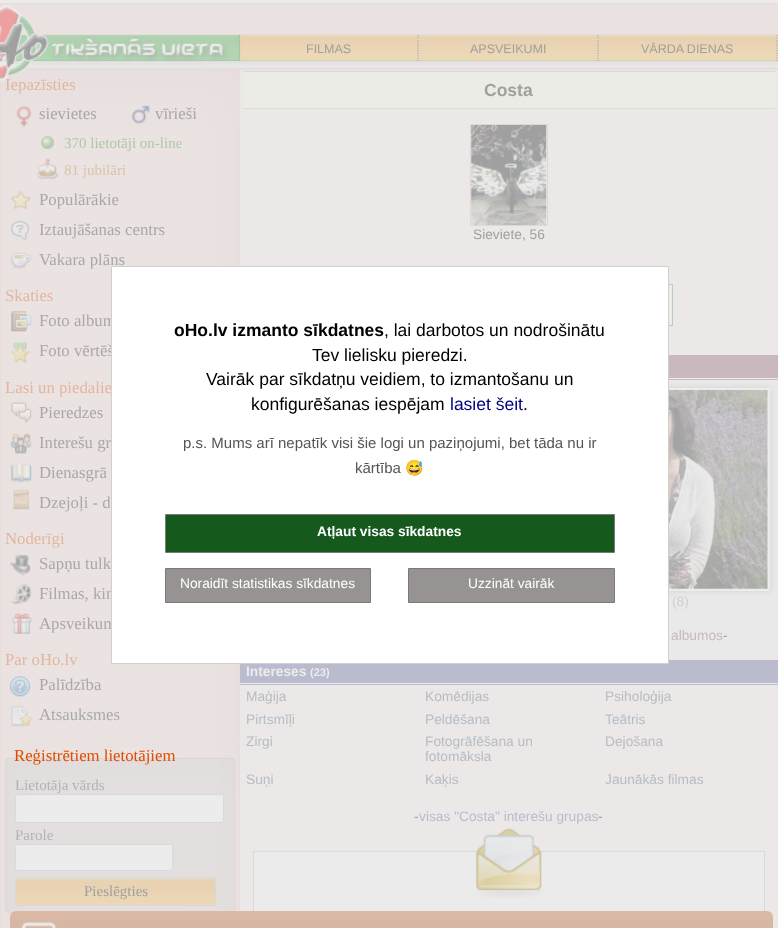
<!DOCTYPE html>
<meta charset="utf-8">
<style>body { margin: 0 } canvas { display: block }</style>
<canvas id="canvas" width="778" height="928"></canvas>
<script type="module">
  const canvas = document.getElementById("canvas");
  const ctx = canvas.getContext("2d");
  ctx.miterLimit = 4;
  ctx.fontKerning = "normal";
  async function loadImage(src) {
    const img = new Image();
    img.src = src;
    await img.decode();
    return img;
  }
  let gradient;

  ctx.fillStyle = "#ececec";
  ctx.fillRect(0, 0, 778, 928);
  ctx.fillStyle = "#e9dddb";
  ctx.fillRect(0, 3, 778, 925);
  ctx.fillStyle = "#eae2e1";
  ctx.fillRect(1, 4, 777, 30);
  ctx.fillRect(1, 35, 777, 33);
  ctx.drawImage(await loadImage("img2.png"), 3, 35, 775, 27);
  ctx.drawImage(await loadImage("img3.png"), 3, 35, 237, 27);
  ctx.drawImage(await loadImage("img4.png"), 1, 61, 777, 7);
  ctx.fillRect(1, 70, 238, 858);
  ctx.drawImage(await loadImage("img5.png"), 1, 70, 238, 664);
  ctx.font = "16.75px Liberation Serif";
  ctx.fillStyle = "#e3b6a0";
  ctx.fillText("Iepazīsties", 5, 90);
  ctx.drawImage(await loadImage("img1.png"), 0, 5, 228, 77);
  ctx.beginPath();
  ctx.moveTo(239.5, 35);
  ctx.lineTo(239.5, 61);
  ctx.strokeStyle = "#aeaeae";
  ctx.lineWidth = 1.2;
  ctx.setLineDash([1.25, 1.25]);
  ctx.stroke();
  ctx.beginPath();
  ctx.moveTo(418, 35);
  ctx.lineTo(418, 61);
  ctx.stroke();
  ctx.font = "12.5px Liberation Sans";
  ctx.fillStyle = "#a0a0a0";
  ctx.fillText("FILMAS", 306, 53);
  ctx.beginPath();
  ctx.moveTo(598, 35);
  ctx.lineTo(598, 61);
  ctx.stroke();
  ctx.fillText("APSVEIKUMI", 470, 53);
  ctx.beginPath();
  ctx.moveTo(777, 35);
  ctx.lineTo(777, 61);
  ctx.stroke();
  ctx.fillText("VĀRDA DIENAS", 641, 53);
  ctx.drawImage(await loadImage("img6.png"), 16, 106, 16, 21);
  ctx.font = "16.75px Liberation Serif";
  ctx.fillStyle = "#a9a9a9";
  ctx.fillText("sievietes", 39, 119);
  ctx.drawImage(await loadImage("img7.png"), 131, 105, 20, 19);
  ctx.fillText("vīrieši", 155, 119);
  ctx.drawImage(await loadImage("img8.png"), 41, 136, 13, 13);
  ctx.font = "15px Liberation Serif";
  ctx.fillStyle = "#adc9a4";
  ctx.fillText("370 lietotāji on-line", 64, 148);
  ctx.drawImage(await loadImage("img9.png"), 37, 158, 21, 21);
  ctx.fillStyle = "#d8c4a9";
  ctx.fillText("81 jubilāri", 64, 175);
  ctx.drawImage(await loadImage("img10.png"), 11, 191, 20, 18);
  ctx.font = "16.75px Liberation Serif";
  ctx.fillStyle = "#a9a9a9";
  ctx.fillText("Populārākie", 39, 205);
  ctx.drawImage(await loadImage("img11.png"), 10, 220, 21, 21);
  ctx.fillText("Iztaujāšanas centrs", 39, 235);
  ctx.drawImage(await loadImage("img12.png"), 11, 252, 21, 17);
  ctx.fillText("Vakara plāns", 39, 265);
  ctx.fillStyle = "#e3b6a0";
  ctx.fillText("Skaties", 5, 301);
  ctx.drawImage(await loadImage("img13.png"), 11, 311, 21, 21);
  ctx.fillStyle = "#a9a9a9";
  ctx.fillText("Foto album", 39, 326);
  ctx.drawImage(await loadImage("img14.png"), 11, 342, 20, 21);
  ctx.fillText("Foto vērtēš", 39, 356);
  ctx.fillStyle = "#e3b6a0";
  ctx.fillText("Lasi un piedalie", 5, 393);
  ctx.drawImage(await loadImage("img15.png"), 11, 402, 21, 21);
  ctx.fillStyle = "#a9a9a9";
  ctx.fillText("Pieredzes", 39, 418);
  ctx.drawImage(await loadImage("img16.png"), 11, 433, 21, 21);
  ctx.fillText("Interešu gr", 39, 448);
  ctx.drawImage(await loadImage("img17.png"), 11, 462, 21, 21);
  ctx.fillText("Dienasgrā", 39, 478);
  ctx.drawImage(await loadImage("img18.png"), 11, 489, 20, 21);
  ctx.fillText("Dzejoļi - d", 39, 508);
  ctx.fillStyle = "#e3b6a0";
  ctx.fillText("Noderīgi", 5, 544);
  ctx.drawImage(await loadImage("img19.png"), 10, 554, 21, 22);
  ctx.fillStyle = "#a9a9a9";
  ctx.fillText("Sapņu tulk", 39, 569);
  ctx.drawImage(await loadImage("img20.png"), 11, 583, 21, 21);
  ctx.fillText("Filmas, kin", 39, 599);
  ctx.drawImage(await loadImage("img21.png"), 12, 613, 20, 21);
  ctx.fillText("Apsveikum", 39, 629);
  ctx.fillStyle = "#e3b6a0";
  ctx.fillText("Par oHo.lv", 5, 665);
  ctx.drawImage(await loadImage("img22.png"), 9, 676, 22, 21);
  ctx.fillStyle = "#a9a9a9";
  ctx.fillText("Palīdzība", 39, 690);
  ctx.drawImage(await loadImage("img23.png"), 11, 706, 21, 21);
  ctx.fillText("Atsauksmes", 39, 720);
  ctx.drawImage(await loadImage("img24.png"), 2, 734, 237, 194);
  ctx.drawImage(await loadImage("img25.png"), 5, 757, 230, 156);
  ctx.beginPath();
  ctx.roundRect(5.5, 758.5, 229, 154, 3.5);
  ctx.strokeStyle = "#d9d9d9";
  ctx.lineWidth = 1;
  ctx.setLineDash([]);
  ctx.stroke();
  ctx.fillStyle = "#e24c00";
  ctx.fillText("Reģistrētiem lietotājiem", 14, 761);
  ctx.font = "15px Liberation Serif";
  ctx.fillStyle = "#b3b3b3";
  ctx.fillText("Lietotāja vārds", 15, 790);
  ctx.fillStyle = "#ececec";
  ctx.beginPath();
  ctx.roundRect(15.5, 794.5, 208, 28, 2);
  ctx.fill();
  ctx.stroke();
  ctx.fillStyle = "#b3b3b3";
  ctx.fillText("Parole", 15, 840);
  ctx.fillStyle = "#ececec";
  ctx.beginPath();
  ctx.roundRect(15.5, 844.5, 157, 26, 2);
  ctx.fill();
  ctx.stroke();
  ctx.drawImage(await loadImage("img26.png"), 15, 877, 202, 30);
  ctx.beginPath();
  ctx.roundRect(15.5, 878.5, 200, 27, 2);
  ctx.stroke();
  ctx.fillStyle = "#a0a0a0";
  ctx.fillText("Pieslēgties", 84, 896);
  ctx.fillStyle = "#ece8e8";
  ctx.fillRect(240, 70, 538, 858);
  ctx.fillStyle = "#ecece6";
  ctx.fillRect(243, 72, 532, 36);
  ctx.fillStyle = "#d9d9d9";
  ctx.fillRect(243, 71, 532, 1);
  ctx.fillRect(243, 108, 532, 1);
  ctx.font = "bold 17.5px Liberation Sans";
  ctx.fillStyle = "#a0a0a0";
  ctx.fillText("Costa", 484, 96);
  ctx.strokeRect(470.5, 124.5, 77, 101);
  ctx.drawImage(await loadImage("img27.png"), 471, 125, 76, 100);
  ctx.font = "13.75px Liberation Sans";
  ctx.fillText("Sieviete, 56", 473, 239);
  ctx.fillStyle = "#ecece6";
  ctx.fillRect(669, 285, 3, 40);
  ctx.strokeStyle = "#b9d0b7";
  ctx.strokeRect(345.5, 284.5, 327, 41);
  ctx.fillStyle = "#c9b9bf";
  ctx.fillRect(669, 355, 109, 25);
  ctx.fillStyle = "#ececec";
  ctx.fillRect(669, 378, 109, 1);
  ctx.fillStyle = "#e9e9e9";
  ctx.fillRect(669, 380, 109, 276);
  ctx.fillStyle = "rgba(160, 160, 160, 0.3)";
  ctx.filter = "blur(3px)";
  ctx.beginPath();
  ctx.rect(516, 388, 254, 203);
  ctx.fill();
  ctx.filter = "none";
  ctx.strokeStyle = "#ececec";
  ctx.lineWidth = 3;
  ctx.strokeRect(517.5, 389.5, 251, 200);
  ctx.drawImage(await loadImage("img28.png"), 669, 390, 99, 199);
  ctx.fillStyle = "#d0d0d0";
  ctx.fillText("(8)", 672, 606);
  ctx.fillStyle = "#c9b9bf";
  ctx.fillText("albumos", 671, 640);
  ctx.fillStyle = "#a0a0a0";
  ctx.fillText("-", 723, 640);
  ctx.fillStyle = "#babbce";
  ctx.fillRect(240, 660, 538, 25);
  ctx.fillStyle = "#ececec";
  ctx.fillRect(240, 683, 538, 1);
  ctx.font = "bold 13.75px Liberation Sans";
  ctx.fillText("Intereses", 246, 676);
  ctx.font = "bold 11px Liberation Sans";
  ctx.fillText("(23)", 310, 676);
  ctx.font = "13.75px Liberation Sans";
  ctx.fillStyle = "#b6bdc4";
  ctx.fillText("Maģija", 246, 701);
  ctx.fillText("Komēdijas", 425, 701);
  ctx.fillText("Psiholoģija", 605, 701);
  ctx.fillText("Pirtsmīļi", 246, 724);
  ctx.fillText("Peldēšana", 425, 724);
  ctx.fillText("Teātris", 605, 724);
  ctx.fillText("Zirgi", 246, 746);
  ctx.fillText("Fotogrāfēšana un", 425, 746);
  ctx.fillText("fotomāksla", 425, 761);
  ctx.fillText("Dejošana", 605, 746);
  ctx.fillText("Suņi", 246, 784);
  ctx.fillText("Kaķis", 425, 784);
  ctx.fillText("Jaunākās filmas", 605, 784);
  ctx.fillStyle = "#a0a0a0";
  ctx.fillText("-", 414, 821);
  ctx.fillStyle = "#babbce";
  ctx.fillText("visas \"Costa\" interešu grupas", 419, 821);
  ctx.fillStyle = "#a0a0a0";
  ctx.fillText("-", 598, 821);
  ctx.fillStyle = "#ecebeb";
  ctx.fillRect(254, 852, 510, 59);
  ctx.strokeStyle = "#d9d9d9";
  ctx.lineWidth = 1;
  ctx.strokeRect(253.5, 851.5, 511, 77);
  ctx.drawImage(await loadImage("img29.png"), 472, 828, 74, 71);
  ctx.fillStyle = "#ffffff";
  ctx.beginPath();
  ctx.rect(111.5, 266.5, 557, 397);
  ctx.fill();
  ctx.strokeStyle = "#d0d0d0";
  ctx.stroke();
  ctx.font = "bold 17.5px Liberation Sans";
  ctx.fillStyle = "#000000";
  ctx.fillText("oHo.lv izmanto sīkdatnes", 174, 336);
  ctx.font = "17.5px Liberation Sans";
  ctx.fillText(", lai darbotos un nodrošinātu", 384, 336);
  ctx.fillText("Tev lielisku pieredzi.", 312, 361);
  ctx.fillText("Vairāk par sīkdatņu veidiem, to izmantošanu un", 206, 385);
  ctx.fillText("konfigurēšanas iespējam", 251, 410);
  ctx.fillStyle = "#000080";
  ctx.fillText("lasiet šeit", 450, 410);
  ctx.fillStyle = "#000000";
  ctx.fillText(".", 523, 410);
  ctx.font = "15px Liberation Sans";
  ctx.fillStyle = "#555555";
  ctx.fillText("p.s. Mums arī nepatīk visi šie logi un paziņojumi, bet tāda nu ir", 183, 448);
  ctx.fillText("kārtība", 355, 473);
  ctx.font = "15px Noto Color Emoji";
  ctx.fillText("😅", 405, 473);
  ctx.fillStyle = "#155a1c";
  ctx.beginPath();
  ctx.rect(165.5, 514.5, 449, 38);
  ctx.fill();
  ctx.strokeStyle = "#7b7a79";
  ctx.stroke();
  ctx.font = "bold 13.75px Liberation Sans";
  ctx.fillStyle = "#ffffff";
  ctx.fillText("Atļaut visas sīkdatnes", 317, 536);
  ctx.fillStyle = "#969392";
  ctx.beginPath();
  ctx.rect(165.5, 568.5, 205, 34);
  ctx.fill();
  ctx.stroke();
  ctx.font = "13.75px Liberation Sans";
  ctx.fillStyle = "#ffffff";
  ctx.fillText("Noraidīt statistikas sīkdatnes", 180, 588);
  ctx.fillStyle = "#969392";
  ctx.beginPath();
  ctx.rect(408.5, 568.5, 206, 34);
  ctx.fill();
  ctx.stroke();
  ctx.fillStyle = "#ffffff";
  ctx.fillText("Uzzināt vairāk", 468, 588);
  gradient = ctx.createLinearGradient(391, 911, 391, 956);
  gradient.addColorStop(0, "#dbb9a5");
  gradient.addColorStop(1, "#ceb3a3");
  ctx.fillStyle = gradient;
  ctx.beginPath();
  ctx.roundRect(10, 911, 763, 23, 6);
  ctx.fill();
  ctx.drawImage(await loadImage("img30.png"), 21, 922, 36, 6);
</script>
